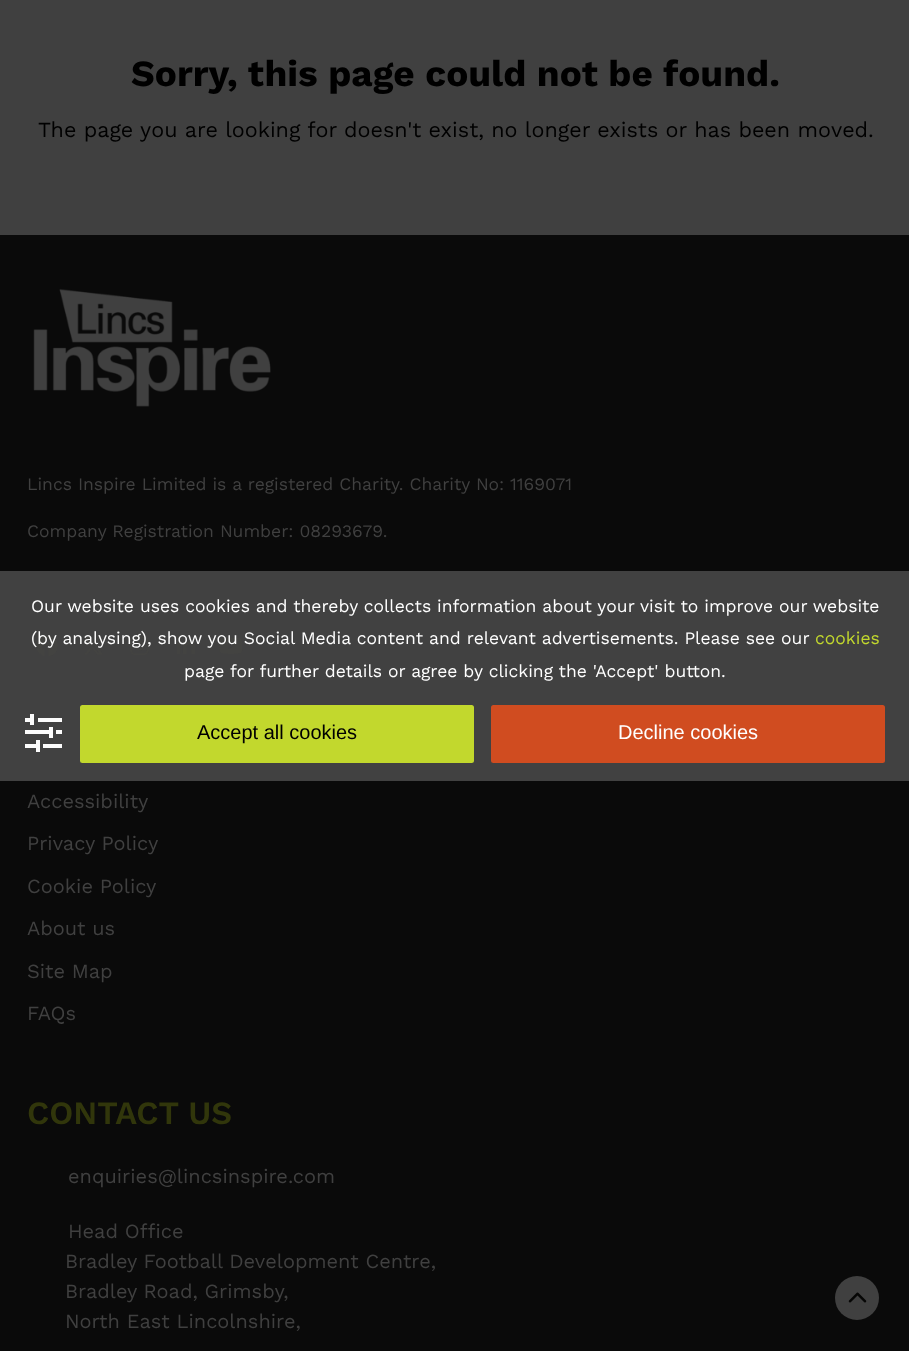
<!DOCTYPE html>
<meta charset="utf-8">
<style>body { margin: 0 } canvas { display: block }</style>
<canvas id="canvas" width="909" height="1351"></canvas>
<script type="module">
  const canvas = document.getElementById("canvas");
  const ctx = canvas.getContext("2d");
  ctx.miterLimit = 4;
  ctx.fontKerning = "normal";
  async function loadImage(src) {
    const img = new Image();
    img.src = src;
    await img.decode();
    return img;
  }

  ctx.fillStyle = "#404040";
  ctx.fillRect(0, 0, 909, 1351);
  ctx.font = "bold 36.9px Work Sans";
  ctx.fillStyle = "#000000";
  ctx.fillText("Sorry, this page could not be found.", 131, 86);
  ctx.font = "21.55px Work Sans";
  ctx.fillText("The page you are looking for doesn't exist, no longer exists or has been moved.", 38, 137);
  ctx.fillStyle = "#0a0a0a";
  ctx.fillRect(0, 235, 909, 1116);
  ctx.fillStyle = "#414141";
  ctx.fillRect(0, 571, 909, 210);
  ctx.drawImage(await loadImage("img1.png"), 33, 288, 238, 119);
  ctx.font = "17.5px Work Sans";
  ctx.fillStyle = "#404040";
  ctx.fillText("Lincs Inspire Limited is a registered Charity. Charity No: 1169071", 27, 490);
  ctx.fillText("Company Registration Number: 08293679.", 27, 537);
  ctx.drawImage(await loadImage("img2.png"), 36, 635, 22, 22);
  ctx.drawImage(await loadImage("img3.png"), 83, 637, 20, 18);
  ctx.drawImage(await loadImage("img4.png"), 130, 636, 19, 20);
  ctx.drawImage(await loadImage("img5.png"), 176, 635, 19, 19);
  ctx.drawImage(await loadImage("img6.png"), 219, 637, 24, 17);
  ctx.font = "20px Work Sans";
  ctx.fillText("Accessibility", 27, 808);
  ctx.fillText("Privacy Policy", 27, 850);
  ctx.fillText("Cookie Policy", 27, 893);
  ctx.fillText("About us", 27, 935);
  ctx.fillText("Site Map", 27, 978);
  ctx.fillText("FAQs", 27, 1020);
  ctx.font = "600 32.5px Work Sans";
  ctx.fillStyle = "#31360b";
  ctx.fillText("CONTACT US", 27, 1124);
  ctx.font = "20px Work Sans";
  ctx.fillStyle = "#404040";
  ctx.fillText("enquiries@lincsinspire.com", 68, 1183);
  ctx.fillText("Head Office", 68, 1238);
  ctx.fillText("Bradley Football Development Centre,", 65, 1268);
  ctx.fillText("Bradley Road, Grimsby,", 65, 1298);
  ctx.fillText("North East Lincolnshire,", 65, 1328);
  ctx.font = "17.5px Work Sans";
  ctx.fillStyle = "#ffffff";
  ctx.fillText("Our website uses cookies and thereby collects information about your visit to improve our website", 31, 612);
  ctx.fillText("(by analysing), show you Social Media content and relevant advertisements. Please see our", 31, 644);
  ctx.fillStyle = "#c2d82d";
  ctx.fillText("cookies", 815, 644);
  ctx.fillStyle = "#ffffff";
  ctx.fillText("page for further details or agree by clicking the 'Accept' button.", 184, 677);
  ctx.drawImage(await loadImage("img7.png"), 25, 714, 37, 38);
  ctx.fillStyle = "#c2d82d";
  ctx.beginPath();
  ctx.roundRect(80, 705, 394, 58, 2.5);
  ctx.fill();
  ctx.font = "20px Liberation Sans";
  ctx.fillStyle = "#000000";
  ctx.fillText("Accept all cookies", 197, 739);
  ctx.fillStyle = "#d04c20";
  ctx.beginPath();
  ctx.roundRect(491, 705, 394, 58, 2.5);
  ctx.fill();
  ctx.fillStyle = "#ffffff";
  ctx.fillText("Decline cookies", 618, 739);
  ctx.fillStyle = "#404040";
  ctx.beginPath();
  ctx.arc(857, 1298, 22, 0, Math.PI * 2);
  ctx.fill();
  ctx.drawImage(await loadImage("img8.png"), 848, 1292, 19, 11);
</script>
